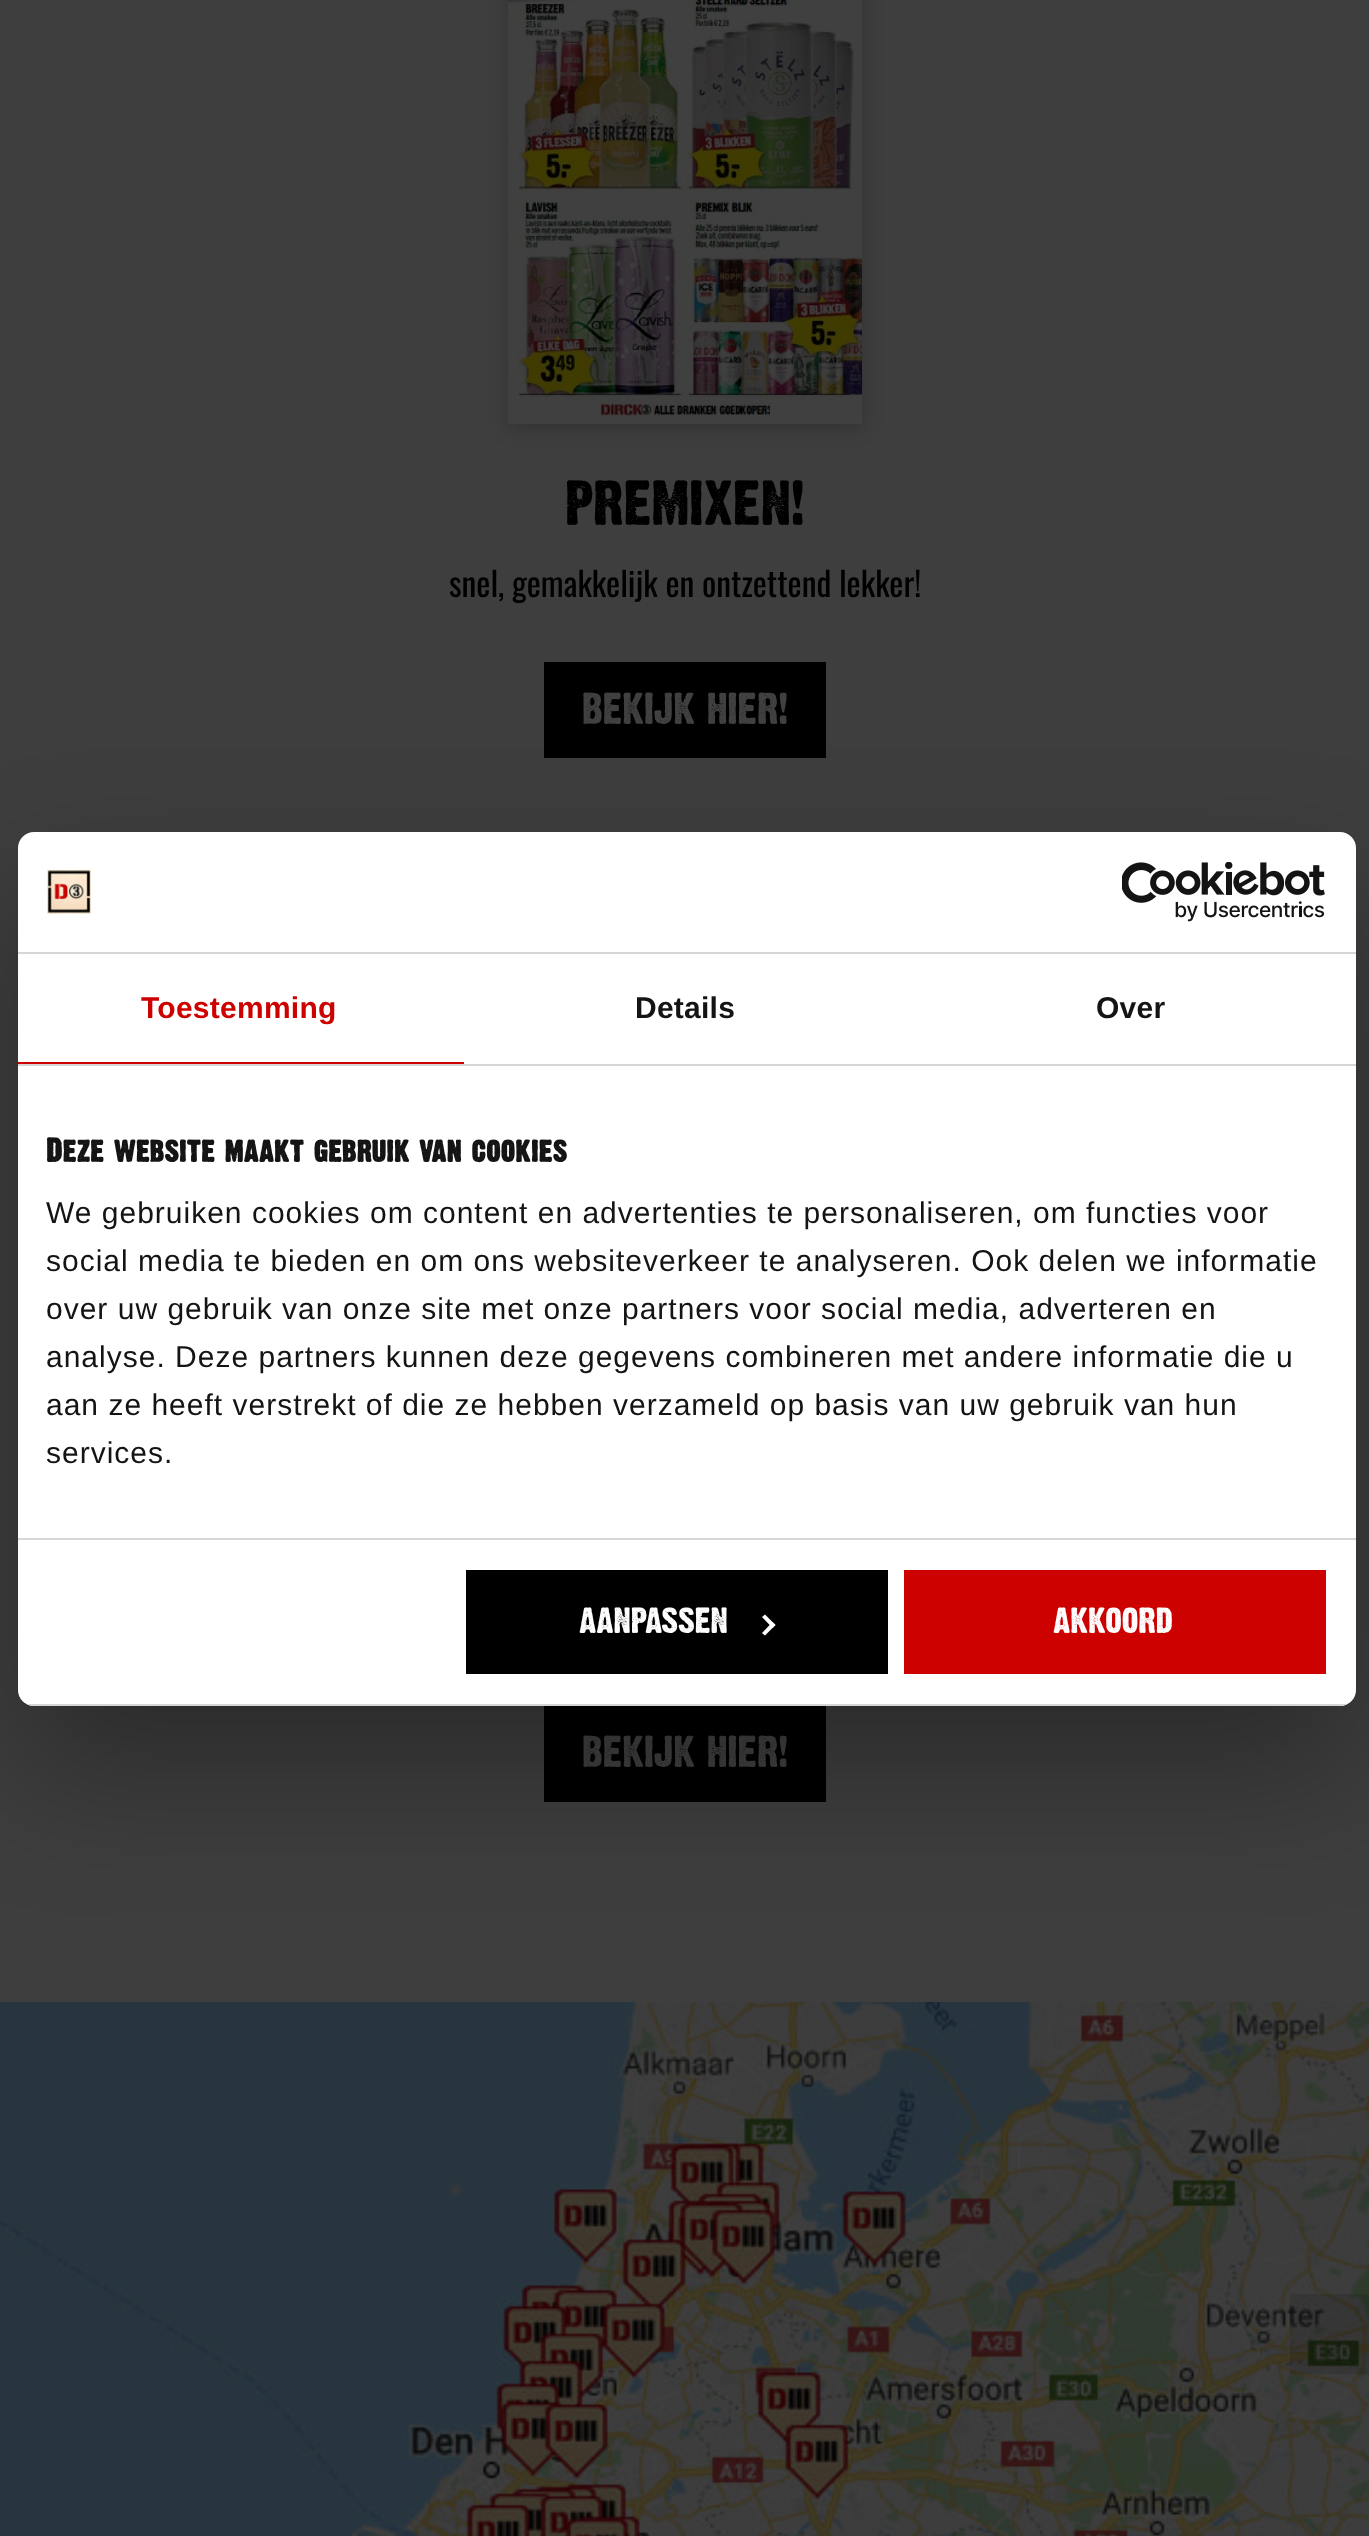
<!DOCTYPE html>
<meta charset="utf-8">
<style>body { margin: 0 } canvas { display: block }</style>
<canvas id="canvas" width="1369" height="2536"></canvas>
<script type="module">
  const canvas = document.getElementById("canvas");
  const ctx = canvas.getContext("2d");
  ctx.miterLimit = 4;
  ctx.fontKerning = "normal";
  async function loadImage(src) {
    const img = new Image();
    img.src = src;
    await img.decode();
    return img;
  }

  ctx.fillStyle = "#3e3e3e";
  ctx.fillRect(0, 0, 1369, 2536);
  ctx.fillStyle = "rgba(1, 1, 1, 0.2)";
  ctx.filter = "blur(10px)";
  ctx.beginPath();
  ctx.rect(508, -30, 354, 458);
  ctx.fill();
  ctx.filter = "none";
  ctx.drawImage(await loadImage("img1.png"), 508, 0, 354, 424);
  ctx.font = "56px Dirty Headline";
  ctx.fillStyle = "#000000";
  ctx.fillText("PREMIXEN!", 565, 525);
  ctx.font = "33.6px Oswald";
  ctx.fillText("snel, gemakkelijk en ontzettend lekker!", 449, 597);
  ctx.fillRect(544, 662, 282, 96);
  ctx.font = "39.25px Dirty Headline";
  ctx.fillStyle = "#404040";
  ctx.fillText("BEKIJK HIER!", 582, 724);
  ctx.fillStyle = "#000000";
  ctx.fillRect(544, 1706, 282, 96);
  ctx.fillStyle = "#404040";
  ctx.fillText("BEKIJK HIER!", 582, 1767);
  ctx.drawImage(await loadImage("img2.png"), 0, 2002, 1369, 534);
  ctx.fillStyle = "rgba(0, 0, 0, 0.11)";
  ctx.fillRect(1290, 2294, 79, 80);
  ctx.fillStyle = "rgba(0, 0, 0, 0.3)";
  ctx.filter = "blur(68px)";
  ctx.beginPath();
  ctx.roundRect(18, 896, 1338, 874, 16);
  ctx.fill();
  ctx.filter = "none";
  ctx.fillStyle = "#ffffff";
  ctx.beginPath();
  ctx.roundRect(18, 832, 1338, 874, 16);
  ctx.fill();
  ctx.fillStyle = "#d6d6d6";
  ctx.fillRect(18, 952, 1338, 2);
  ctx.drawImage(await loadImage("img3.png"), 47, 869, 44, 45);
  ctx.drawImage(await loadImage("img4.png"), 1122, 862, 203, 60);
  ctx.fillRect(18, 1064, 1338, 2);
  ctx.fillStyle = "#cc0100";
  ctx.fillRect(18, 1062, 446, 2);
  ctx.letterSpacing = "0.25px";
  ctx.font = "bold 30px Liberation Sans";
  ctx.fillText("Toestemming", 141, 1018);
  ctx.fillStyle = "#141414";
  ctx.fillText("Details", 635, 1018);
  ctx.fillText("Over", 1096, 1018);
  ctx.fillStyle = "#d6d6d6";
  ctx.fillRect(18, 1538, 1338, 2);
  ctx.letterSpacing = "0.5px";
  ctx.font = "bold 30px Dirty Headline";
  ctx.fillStyle = "#141414";
  ctx.fillText("Deze website maakt gebruik van cookies", 46, 1162);
  ctx.letterSpacing = "1px";
  ctx.font = "30px Liberation Sans";
  ctx.fillText("We gebruiken cookies om content en advertenties te personaliseren, om functies voor", 46, 1223);
  ctx.fillText("social media te bieden en om ons websiteverkeer te analyseren. Ook delen we informatie", 46, 1271);
  ctx.fillText("over uw gebruik van onze site met onze partners voor social media, adverteren en", 46, 1319);
  ctx.fillText("analyse. Deze partners kunnen deze gegevens combineren met andere informatie die u", 46, 1367);
  ctx.fillText("aan ze heeft verstrekt of die ze hebben verzameld op basis van uw gebruik van hun", 46, 1415);
  ctx.fillText("services.", 46, 1463);
  ctx.save();
  ctx.beginPath();
  ctx.roundRect(18, 832, 1338, 874, 16);
  ctx.clip();
  ctx.fillStyle = "#d6d6d6";
  ctx.fillRect(18, 1704, 1338, 2);
  ctx.restore();
  ctx.fillStyle = "#000000";
  ctx.fillRect(466, 1570, 422, 104);
  ctx.letterSpacing = "0px";
  ctx.font = "32px Dirty Headline";
  ctx.fillStyle = "#ffffff";
  ctx.fillText("AANPASSEN", 579, 1633);
  ctx.beginPath();
  ctx.moveTo(765, 1614.5);
  ctx.lineTo(775.5, 1625);
  ctx.lineTo(772.5, 1628);
  ctx.lineTo(762, 1617);
  ctx.closePath();
  ctx.fill();
  ctx.beginPath();
  ctx.moveTo(772.5, 1622);
  ctx.lineTo(775.5, 1625);
  ctx.lineTo(765, 1635.5);
  ctx.lineTo(762, 1633);
  ctx.closePath();
  ctx.fill();
  ctx.fillStyle = "#cc0100";
  ctx.fillRect(904, 1570, 422, 104);
  ctx.fillStyle = "#ffffff";
  ctx.fillText("AKKOORD", 1053, 1633);
</script>
